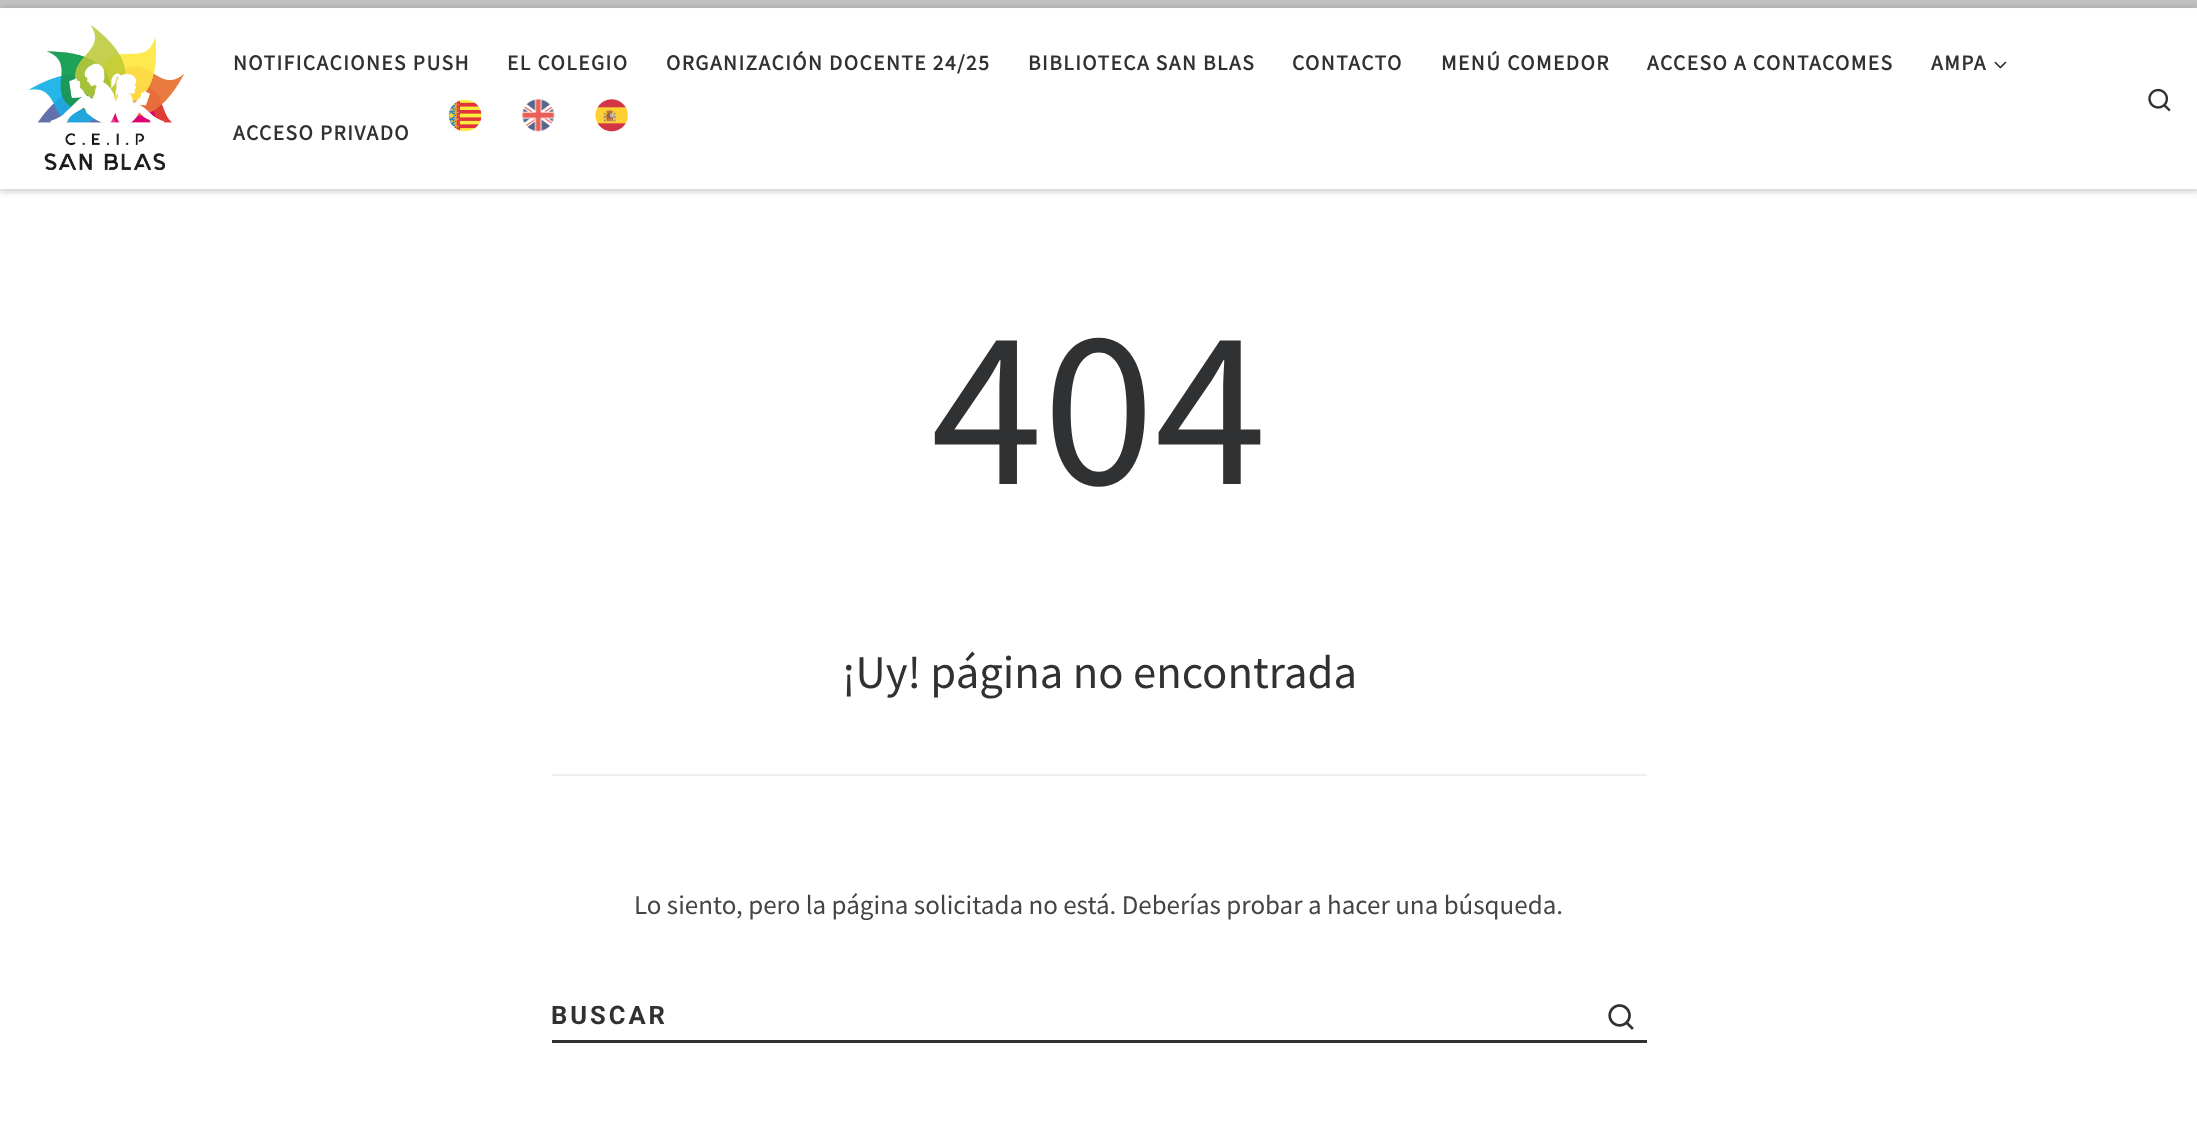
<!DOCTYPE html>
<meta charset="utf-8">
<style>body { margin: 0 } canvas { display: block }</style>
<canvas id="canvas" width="2197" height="1124"></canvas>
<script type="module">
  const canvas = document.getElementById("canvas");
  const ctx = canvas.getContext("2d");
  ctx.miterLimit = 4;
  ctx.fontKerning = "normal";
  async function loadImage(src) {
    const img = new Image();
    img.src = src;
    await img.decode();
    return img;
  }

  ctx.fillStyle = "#ffffff";
  ctx.fillRect(0, 0, 2197, 1124);
  ctx.fillStyle = "#c4c4c4";
  ctx.fillRect(0, 0, 2197, 8);
  ctx.fillStyle = "rgba(102, 102, 102, 0.08)";
  ctx.filter = "blur(1.5px)";
  ctx.beginPath();
  ctx.rect(0, 11, 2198, 183);
  ctx.fill();
  ctx.filter = "none";
  ctx.fillStyle = "#ffffff";
  ctx.fillRect(0, 10, 2197, 179);
  ctx.fillStyle = "#efefef";
  ctx.beginPath();
  ctx.moveTo(0, 189);
  ctx.lineTo(0, 191);
  ctx.lineTo(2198, 191);
  ctx.lineTo(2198, 9);
  ctx.lineTo(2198, 189);
  ctx.closePath();
  ctx.fill();
  ctx.save();
  ctx.beginPath();
  ctx.moveTo(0, 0);
  ctx.lineTo(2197, 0);
  ctx.lineTo(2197, 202);
  ctx.lineTo(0, 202);
  ctx.closePath();
  ctx.moveTo(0, 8);
  ctx.lineTo(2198, 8);
  ctx.lineTo(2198, 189);
  ctx.lineTo(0, 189);
  ctx.closePath();
  ctx.clip("evenodd");
  ctx.fillStyle = "rgba(0, 0, 0, 0.2)";
  ctx.filter = "blur(4px)";
  ctx.beginPath();
  ctx.rect(0, 8, 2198, 181);
  ctx.fill();
  ctx.filter = "none";
  ctx.restore();
  ctx.drawImage(await loadImage("img1.png"), 29, 25, 156, 146);
  ctx.letterSpacing = "1.5px";
  ctx.font = "bold 21.4px Source Sans Pro";
  ctx.fillStyle = "#303133";
  ctx.fillText("NOTIFICACIONES PUSH", 233, 70);
  ctx.fillText("EL COLEGIO", 507, 70);
  ctx.fillText("ORGANIZACIÓN DOCENTE 24/25", 666, 70);
  ctx.fillText("BIBLIOTECA SAN BLAS", 1028, 70);
  ctx.fillText("CONTACTO", 1292, 70);
  ctx.fillText("MENÚ COMEDOR", 1441, 70);
  ctx.fillText("ACCESO A CONTACOMES", 1647, 70);
  ctx.fillText("AMPA", 1931, 70);
  ctx.drawImage(await loadImage("img2.png"), 1994, 61, 13, 8);
  ctx.fillText("ACCESO PRIVADO", 233, 140);
  ctx.drawImage(await loadImage("img3.png"), 448, 100, 34, 32);
  ctx.drawImage(await loadImage("img4.png"), 522, 98, 33, 34);
  ctx.drawImage(await loadImage("img5.png"), 595, 99, 33, 33);
  ctx.drawImage(await loadImage("img6.png"), 2148, 88, 23, 24);
  ctx.letterSpacing = "0px";
  ctx.font = "225px Source Sans Pro";
  ctx.fillText("404", 931, 484);
  ctx.font = "46.75px Source Sans Pro";
  ctx.fillText("¡Uy! página no encontrada", 842, 688);
  ctx.fillStyle = "#eceeef";
  ctx.fillRect(552, 774, 1095, 2);
  ctx.font = "27px Source Sans Pro";
  ctx.fillStyle = "#444444";
  ctx.fillText("Lo siento, pero la página solicitada no está. Deberías probar a hacer una búsqueda.", 634, 914);
  ctx.letterSpacing = "3px";
  ctx.font = "bold 25.5px Roboto";
  ctx.fillStyle = "#303133";
  ctx.fillText("BUSCAR", 551, 1024);
  ctx.drawImage(await loadImage("img7.png"), 1608, 1004, 26, 26);
  ctx.fillStyle = "#313131";
  ctx.fillRect(552, 1040, 1095, 3);
</script>
